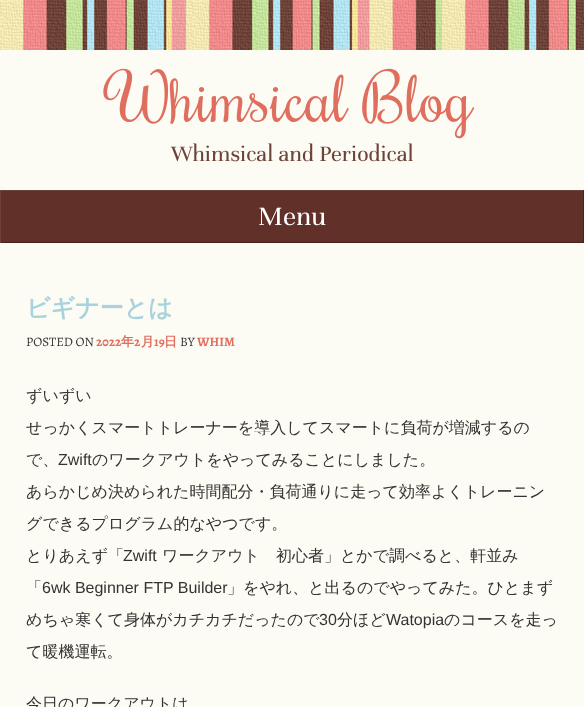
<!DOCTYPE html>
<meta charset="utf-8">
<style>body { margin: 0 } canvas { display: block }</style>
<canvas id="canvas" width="584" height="707"></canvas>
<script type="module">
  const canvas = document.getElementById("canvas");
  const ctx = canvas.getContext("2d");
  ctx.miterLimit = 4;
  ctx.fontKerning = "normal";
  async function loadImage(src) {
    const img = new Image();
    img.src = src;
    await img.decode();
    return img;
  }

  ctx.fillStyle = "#fcfbf4";
  ctx.fillRect(0, 0, 584, 707);
  ctx.drawImage(await loadImage("img1.png"), 0, 0, 584, 50);
  ctx.font = "65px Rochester";
  ctx.fillStyle = "#e06e5f";
  ctx.fillText("Whimsical Blog", 110, 122);
  ctx.font = "24px Unna";
  ctx.fillStyle = "#6d4238";
  ctx.fillText("Whimsical and Periodical", 171, 161);
  ctx.fillStyle = "#603029";
  ctx.fillRect(1, 191, 582, 51);
  ctx.fillStyle = "#6d4238";
  ctx.fillRect(0, 190, 584, 1);
  ctx.fillStyle = "#4c211b";
  ctx.fillRect(583, 190, 1, 53);
  ctx.fillRect(0, 242, 584, 1);
  ctx.fillStyle = "#6d4238";
  ctx.fillRect(0, 190, 1, 53);
  ctx.font = "29px Unna";
  ctx.fillStyle = "#ffffff";
  ctx.fillText("Menu", 258, 225);
  ctx.font = "bold 24px WenQuanYi Zen Hei";
  ctx.fillStyle = "#a8d3dd";
  ctx.fillText("ビギナーとは", 26, 316);
  ctx.font = "13px Alegreya";
  ctx.fillStyle = "#333333";
  ctx.fillText("POSTED ON", 26, 346);
  ctx.font = "bold 13px Alegreya";
  ctx.fillStyle = "#e06e5f";
  ctx.fillText("2022", 96, 346);
  ctx.font = "bold 13px WenQuanYi Zen Hei";
  ctx.fillText("年", 121, 346);
  ctx.font = "bold 13px Alegreya";
  ctx.fillText("2", 134, 346);
  ctx.font = "bold 13px WenQuanYi Zen Hei";
  ctx.fillText("月", 141, 346);
  ctx.font = "bold 13px Alegreya";
  ctx.fillText("19", 154, 346);
  ctx.font = "bold 13px WenQuanYi Zen Hei";
  ctx.fillText("日", 164, 346);
  ctx.font = "13px Alegreya";
  ctx.fillStyle = "#333333";
  ctx.fillText("BY", 180, 346);
  ctx.font = "bold 13px Alegreya";
  ctx.fillStyle = "#e06e5f";
  ctx.fillText("WHIM", 197, 346);
  ctx.font = "500 16px WenQuanYi Zen Hei";
  ctx.fillStyle = "#333333";
  ctx.fillText("ずいずい", 26, 401);
  ctx.fillText("せっかくスマートトレーナーを導入してスマートに負荷が増減するの", 26, 433);
  ctx.fillText("で、", 26, 465);
  ctx.font = "16px Liberation Sans";
  ctx.fillText("Zwift", 58, 465);
  ctx.font = "500 16px WenQuanYi Zen Hei";
  ctx.fillText("のワークアウトをやってみることにしました。", 92, 465);
  ctx.fillText("あらかじめ決められた時間配分・負荷通りに走って効率よくトレーニン", 26, 497);
  ctx.fillText("グできるプログラム的なやつです。", 26, 529);
  ctx.fillText("とりあえず「", 26, 561);
  ctx.font = "16px Liberation Sans";
  ctx.fillText("Zwift", 123, 561);
  ctx.font = "500 16px WenQuanYi Zen Hei";
  ctx.fillText("ワークアウト　初心者」とかで調べると、軒並み", 162, 561);
  ctx.fillText("「", 26, 593);
  ctx.font = "16px Liberation Sans";
  ctx.fillText("6wk Beginner FTP Builder", 42, 593);
  ctx.font = "500 16px WenQuanYi Zen Hei";
  ctx.fillText("」をやれ、と出るのでやってみた。ひとまず", 227, 593);
  ctx.fillText("めちゃ寒くて身体がカチカチだったので", 26, 625);
  ctx.font = "16px Liberation Sans";
  ctx.fillText("30", 319, 625);
  ctx.font = "500 16px WenQuanYi Zen Hei";
  ctx.fillText("分ほど", 337, 625);
  ctx.font = "16px Liberation Sans";
  ctx.fillText("Watopia", 386, 625);
  ctx.font = "500 16px WenQuanYi Zen Hei";
  ctx.fillText("のコースを走っ", 444, 625);
  ctx.fillText("て暖機運転。", 26, 657);
  ctx.fillText("今日のワークアウトは", 26, 709);
</script>
